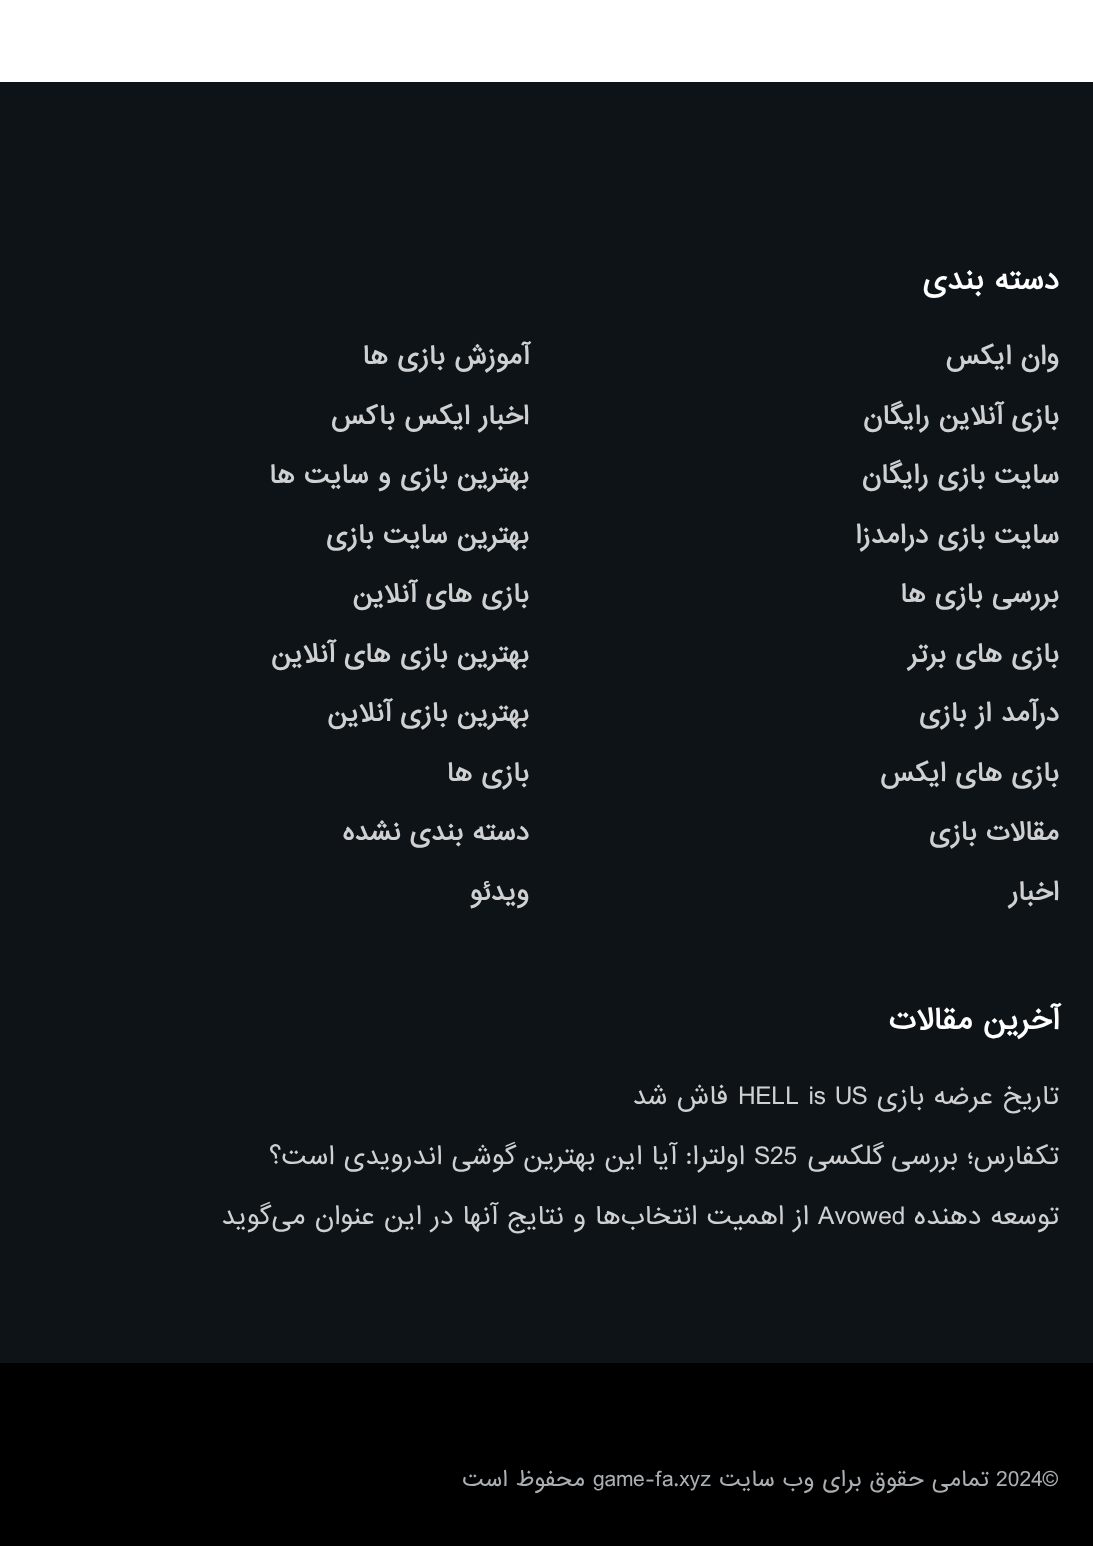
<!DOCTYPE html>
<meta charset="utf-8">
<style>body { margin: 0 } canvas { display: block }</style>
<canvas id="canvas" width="1093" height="1546"></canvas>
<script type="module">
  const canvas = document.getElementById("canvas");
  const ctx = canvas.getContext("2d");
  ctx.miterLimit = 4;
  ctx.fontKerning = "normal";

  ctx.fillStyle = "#ffffff";
  ctx.fillRect(0, 0, 1093, 1546);
  ctx.fillStyle = "#0d1317";
  ctx.fillRect(0, 82, 1093, 1281);
  ctx.direction = "rtl";
  ctx.font = "bold 28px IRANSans";
  ctx.fillStyle = "#ffffff";
  ctx.fillText("دسته بندی", 1059, 289);
  ctx.font = "bold 24.5px IRANSans";
  ctx.fillStyle = "#cfd0d1";
  ctx.fillText("وان ایکس", 1059, 364);
  ctx.fillText("آموزش بازی ها", 529, 364);
  ctx.fillText("بازی آنلاین رایگان", 1059, 424);
  ctx.fillText("اخبار ایکس باکس", 529, 424);
  ctx.fillText("سایت بازی رایگان", 1059, 483);
  ctx.fillText("بهترین بازی و سایت ها", 529, 483);
  ctx.fillText("سایت بازی درامدزا", 1059, 543);
  ctx.fillText("بهترین سایت بازی", 529, 543);
  ctx.fillText("بررسی بازی ها", 1059, 602);
  ctx.fillText("بازی های آنلاین", 529, 602);
  ctx.fillText("بازی های برتر", 1059, 662);
  ctx.fillText("بهترین بازی های آنلاین", 529, 662);
  ctx.fillText("درآمد از بازی", 1059, 721);
  ctx.fillText("بهترین بازی آنلاین", 529, 721);
  ctx.fillText("بازی های ایکس", 1059, 781);
  ctx.fillText("بازی ها", 529, 781);
  ctx.fillText("مقالات بازی", 1059, 840);
  ctx.fillText("دسته بندی نشده", 529, 840);
  ctx.fillText("اخبار", 1059, 900);
  ctx.fillText("ویدئو", 529, 900);
  ctx.font = "bold 28px IRANSans";
  ctx.fillStyle = "#ffffff";
  ctx.fillText("آخرین مقالات", 1059, 1029);
  ctx.font = "24.5px IRANSans";
  ctx.fillStyle = "#cfd0d1";
  ctx.fillText("تاریخ عرضه بازی", 1059, 1104);
  ctx.direction = "ltr";
  ctx.fillText("HELL is US", 738, 1104);
  ctx.direction = "rtl";
  ctx.fillText("فاش شد", 728, 1104);
  ctx.fillText("تکفارس؛ بررسی گلکسی", 1059, 1164);
  ctx.direction = "ltr";
  ctx.fillText("S25", 754, 1164);
  ctx.direction = "rtl";
  ctx.fillText("اولترا: آیا این بهترین گوشی اندرویدی است؟", 745, 1164);
  ctx.fillText("توسعه دهنده", 1059, 1224);
  ctx.direction = "ltr";
  ctx.fillText("Avowed", 818, 1224);
  ctx.direction = "rtl";
  ctx.fillText("از اهمیت انتخاب‌ها و نتایج آنها در این عنوان می‌گوید", 809, 1224);
  ctx.fillStyle = "#000000";
  ctx.fillRect(0, 1363, 1093, 183);
  ctx.direction = "ltr";
  ctx.font = "21px IRANSans";
  ctx.fillStyle = "#a9afb3";
  ctx.fillText("2024©", 996, 1486);
  ctx.direction = "rtl";
  ctx.fillText("تمامی حقوق برای وب سایت", 989, 1486);
  ctx.direction = "ltr";
  ctx.fillText("game-fa.xyz", 593, 1486);
  ctx.direction = "rtl";
  ctx.fillText("محفوظ است", 585, 1486);
</script>
